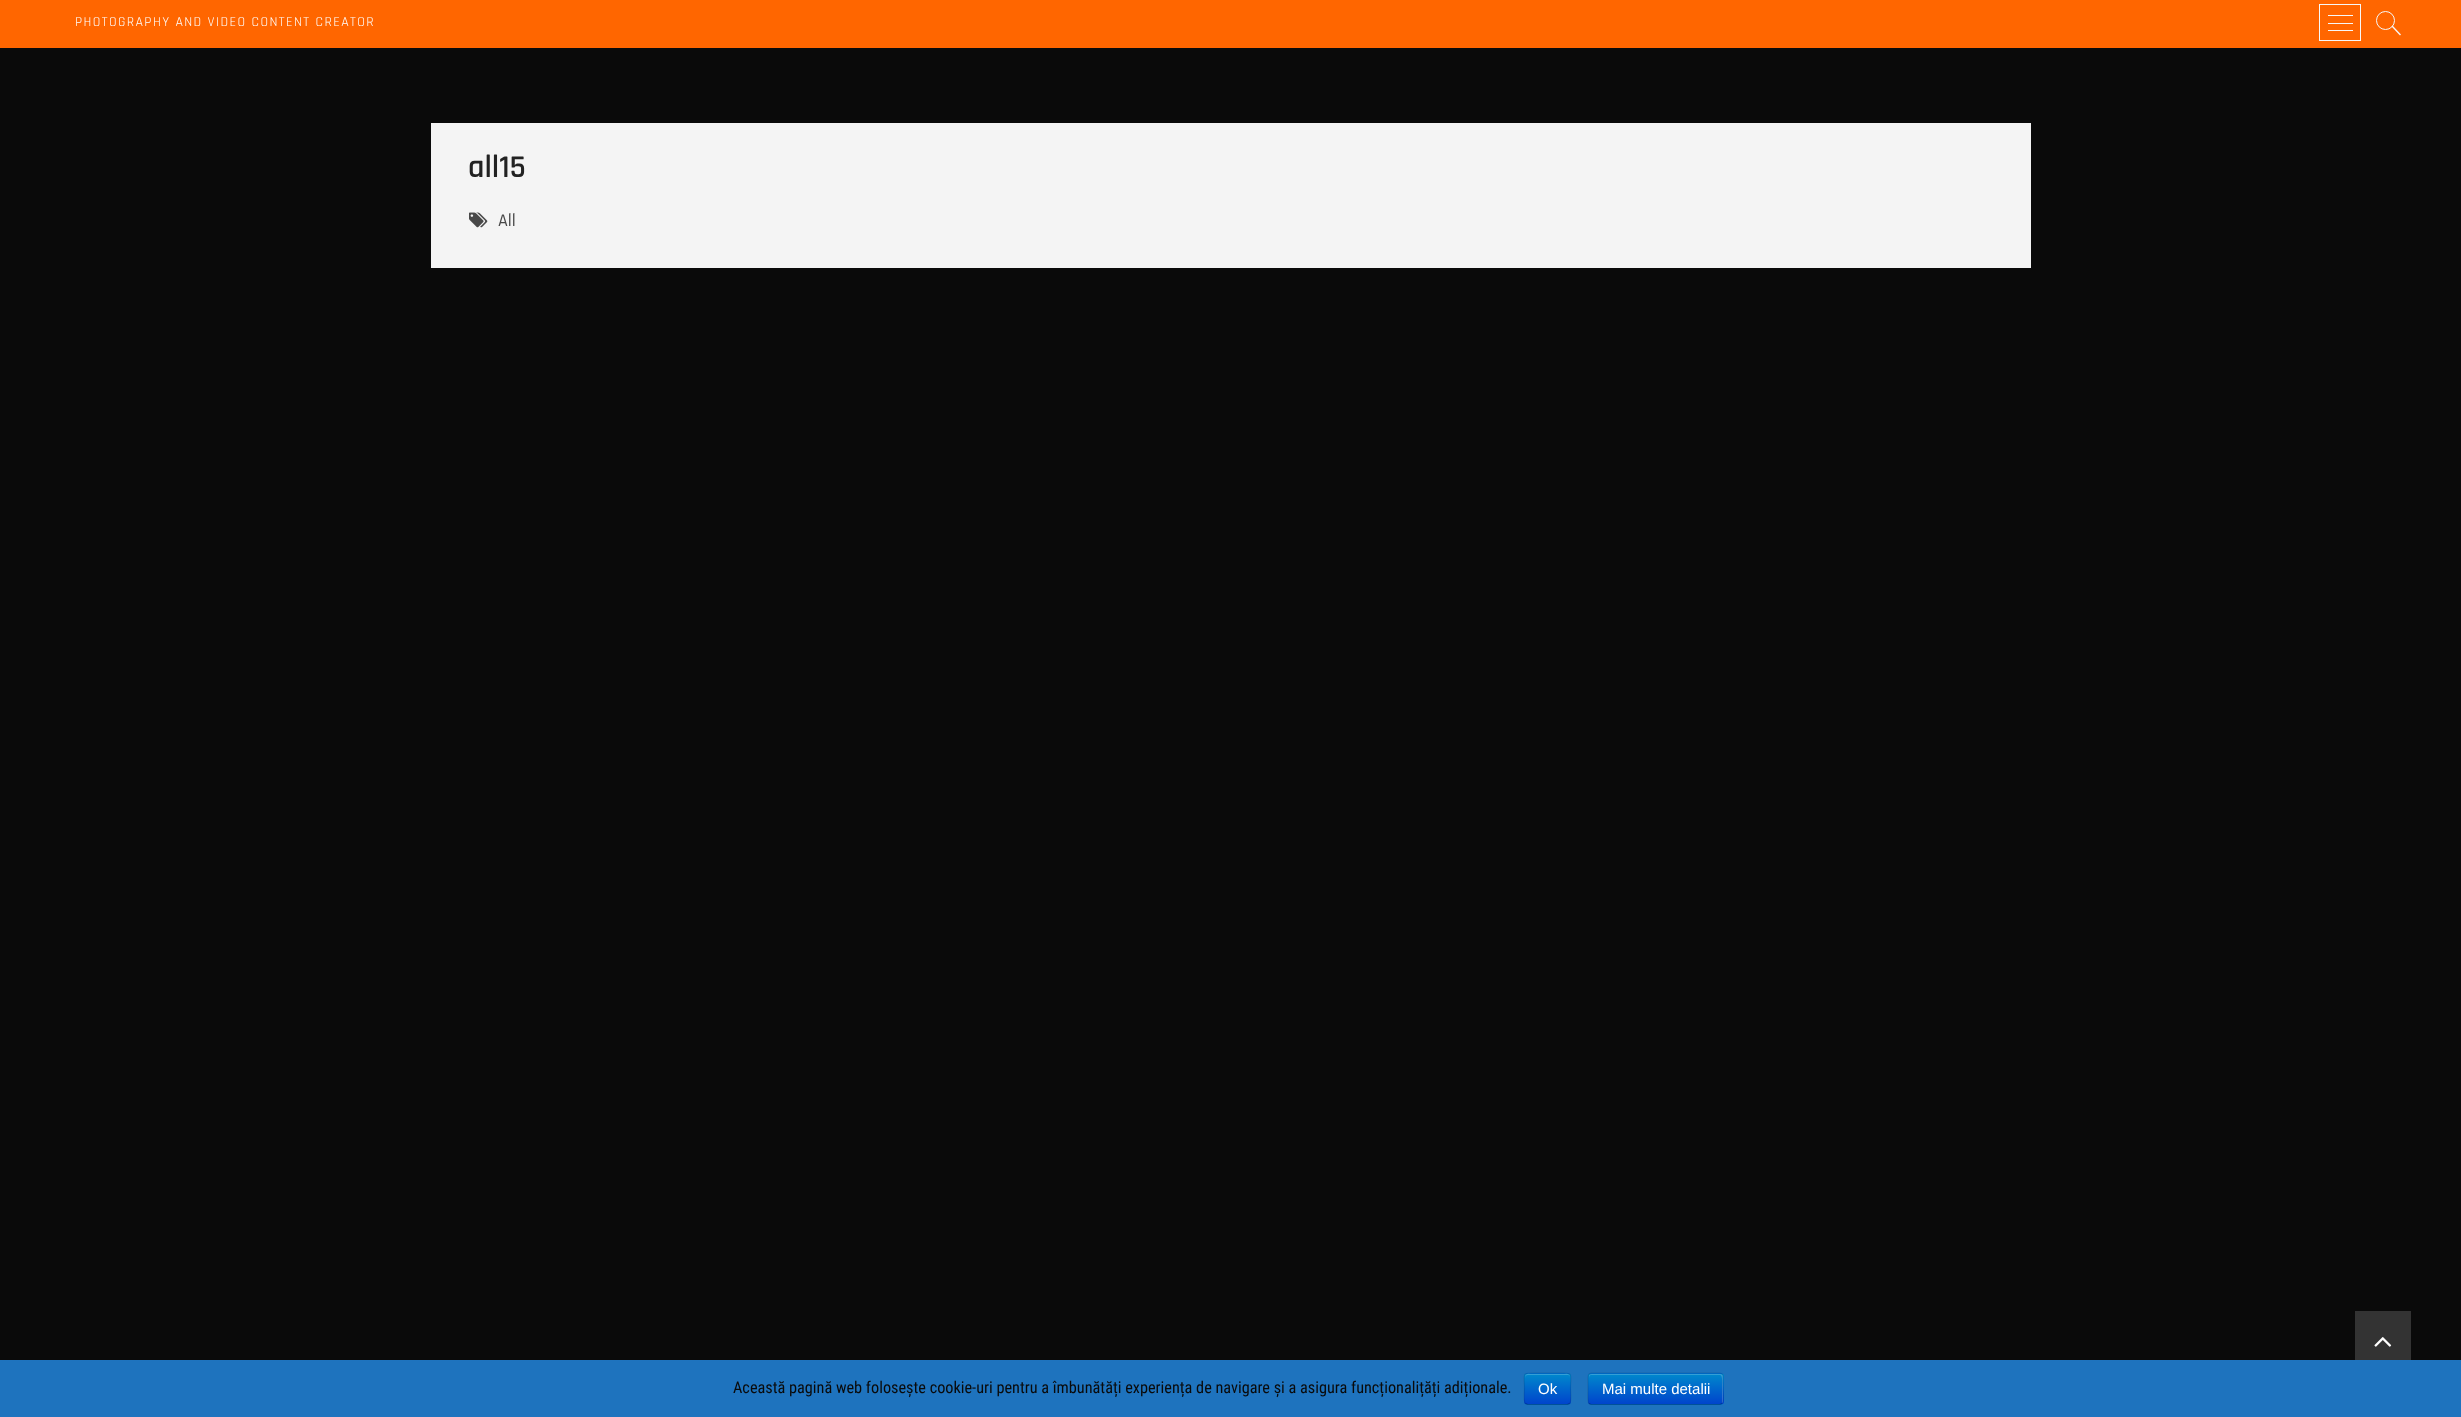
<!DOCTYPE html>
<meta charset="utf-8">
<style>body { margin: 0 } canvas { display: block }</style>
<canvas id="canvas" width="2461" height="1417"></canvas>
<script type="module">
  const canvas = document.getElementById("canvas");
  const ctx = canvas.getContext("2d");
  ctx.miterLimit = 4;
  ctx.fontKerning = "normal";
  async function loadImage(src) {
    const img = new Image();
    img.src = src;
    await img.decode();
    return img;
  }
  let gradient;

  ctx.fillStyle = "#0a0a0a";
  ctx.fillRect(0, 0, 2461, 1417);
  ctx.fillStyle = "#ff6600";
  ctx.fillRect(0, 0, 2461, 48);
  ctx.letterSpacing = "1.4px";
  ctx.font = "13.75px Rajdhani";
  ctx.fillStyle = "#ffffff";
  ctx.fillText("PHOTOGRAPHY AND VIDEO CONTENT CREATOR", 75, 26);
  ctx.strokeStyle = "#f7f7f7";
  ctx.strokeRect(2319.5, 4.5, 41, 36);
  ctx.fillStyle = "#f7f7f7";
  ctx.fillRect(2328, 23, 25, 1);
  ctx.fillRect(2328, 15, 25, 1);
  ctx.fillRect(2328, 30, 25, 1);
  ctx.beginPath();
  ctx.arc(2385.5, 20.5, 9, 0, Math.PI * 2);
  ctx.stroke();
  ctx.beginPath();
  ctx.moveTo(2391.5, 26.5);
  ctx.lineTo(2392.5, 25.5);
  ctx.lineTo(2401, 34.5);
  ctx.lineTo(2400, 35.5);
  ctx.closePath();
  ctx.fill();
  ctx.fillStyle = "#f4f4f4";
  ctx.fillRect(431, 123, 1600, 145);
  ctx.letterSpacing = "0px";
  ctx.font = "600 32px Rajdhani";
  ctx.fillStyle = "#222222";
  ctx.fillText("all15", 468, 177);
  ctx.drawImage(await loadImage("img1.png"), 469, 212, 19, 16);
  ctx.font = "500 18px Rajdhani";
  ctx.fillStyle = "#484848";
  ctx.fillText("All", 498, 226);
  ctx.fillStyle = "#333333";
  ctx.fillRect(2355, 1311, 56, 49);
  ctx.drawImage(await loadImage("img2.png"), 2374, 1337, 18, 10);
  ctx.fillStyle = "#1e73be";
  ctx.fillRect(0, 1360, 2461, 57);
  ctx.font = "16.25px Roboto Condensed";
  ctx.fillStyle = "#0a0a0a";
  ctx.fillText("Această pagină web folosește cookie-uri pentru a îmbunătăți experiența de navigare și a asigura funcționalițăți adiționale.", 733, 1393);
  ctx.fillStyle = "#006dcc";
  ctx.beginPath();
  ctx.roundRect(1524, 1373, 47, 32, 4);
  ctx.fill();
  ctx.save();
  ctx.beginPath();
  ctx.roundRect(1524, 1373, 47, 32, 4);
  ctx.clip();
  gradient = ctx.createLinearGradient(1548, 1374, 1548, 1404);
  gradient.addColorStop(0, "#0088cc");
  gradient.addColorStop(1, "#0044cc");
  ctx.fillStyle = gradient;
  ctx.fillRect(1524, 1374, 47, 30);
  ctx.restore();
  ctx.fillStyle = "#339fd6";
  ctx.beginPath();
  ctx.moveTo(1528, 1375);
  ctx.lineTo(1568, 1375);
  ctx.bezierCurveTo(1569, 1375, 1570, 1376, 1570, 1378);
  ctx.bezierCurveTo(1570, 1372, 1566, 1374, 1561, 1374);
  ctx.lineTo(1534, 1374);
  ctx.bezierCurveTo(1529, 1374, 1525, 1372, 1525, 1378);
  ctx.bezierCurveTo(1525, 1376, 1526, 1375, 1528, 1375);
  ctx.closePath();
  ctx.fill();
  ctx.beginPath();
  ctx.moveTo(1569.5, 1403.5);
  ctx.lineTo(1567.5, 1404.5);
  ctx.lineTo(1527.5, 1404.5);
  ctx.lineTo(1525.5, 1403.5);
  ctx.strokeStyle = "rgba(0, 0, 0, 0.25)";
  ctx.lineWidth = 1.2;
  ctx.stroke();
  ctx.beginPath();
  ctx.moveTo(1525.5, 1403.5);
  ctx.bezierCurveTo(1523, 1401.5, 1524.5, 1391.5, 1524.5, 1389);
  ctx.bezierCurveTo(1524.5, 1374, 1521, 1373, 1534, 1373);
  ctx.lineTo(1561, 1373);
  ctx.bezierCurveTo(1574, 1373, 1570.5, 1374, 1570.5, 1389);
  ctx.bezierCurveTo(1570.5, 1391.5, 1572, 1401.5, 1569.5, 1403.5);
  ctx.strokeStyle = "rgba(0, 0, 0, 0.1)";
  ctx.stroke();
  ctx.font = "15px Liberation Sans";
  ctx.fillStyle = "#ffffff";
  ctx.fillText("Ok", 1538, 1394);
  ctx.fillStyle = "#006dcc";
  ctx.beginPath();
  ctx.roundRect(1588, 1373, 136, 32, 4);
  ctx.fill();
  ctx.save();
  ctx.beginPath();
  ctx.roundRect(1588, 1373, 136, 32, 4);
  ctx.clip();
  gradient = ctx.createLinearGradient(1656, 1374, 1656, 1404);
  gradient.addColorStop(0, "#0088cc");
  gradient.addColorStop(1, "#0044cc");
  ctx.fillStyle = gradient;
  ctx.fillRect(1588, 1374, 136, 30);
  ctx.restore();
  ctx.fillStyle = "rgba(255, 255, 255, 0.2)";
  ctx.beginPath();
  ctx.moveTo(1591, 1375);
  ctx.lineTo(1720, 1375);
  ctx.bezierCurveTo(1723, 1375, 1722, 1385, 1722, 1386);
  ctx.lineTo(1722, 1404);
  ctx.bezierCurveTo(1722, 1403, 1723, 1402, 1723, 1402);
  ctx.lineTo(1723, 1376);
  ctx.bezierCurveTo(1723, 1375, 1722, 1374, 1720, 1374);
  ctx.lineTo(1592, 1374);
  ctx.bezierCurveTo(1590, 1374, 1589, 1375, 1589, 1376);
  ctx.lineTo(1589, 1378);
  ctx.bezierCurveTo(1589, 1376, 1590, 1375, 1591, 1375);
  ctx.closePath();
  ctx.fill();
  ctx.beginPath();
  ctx.moveTo(1722, 1403.5);
  ctx.lineTo(1720, 1404.5);
  ctx.lineTo(1591, 1404.5);
  ctx.lineTo(1589, 1403.5);
  ctx.strokeStyle = "rgba(0, 0, 0, 0.25)";
  ctx.stroke();
  ctx.beginPath();
  ctx.moveTo(1589, 1403.5);
  ctx.bezierCurveTo(1587, 1401.5, 1588, 1391.5, 1588, 1389);
  ctx.lineTo(1588, 1380.5);
  ctx.bezierCurveTo(1588, 1378, 1587.5, 1373, 1591, 1373);
  ctx.lineTo(1720, 1373);
  ctx.bezierCurveTo(1724, 1373, 1723, 1378, 1723, 1380.5);
  ctx.lineTo(1723, 1389);
  ctx.bezierCurveTo(1723, 1391.5, 1724.5, 1401.5, 1722, 1403.5);
  ctx.strokeStyle = "rgba(0, 0, 0, 0.1)";
  ctx.stroke();
  ctx.fillStyle = "#ffffff";
  ctx.fillText("Mai multe detalii", 1602, 1394);
</script>
